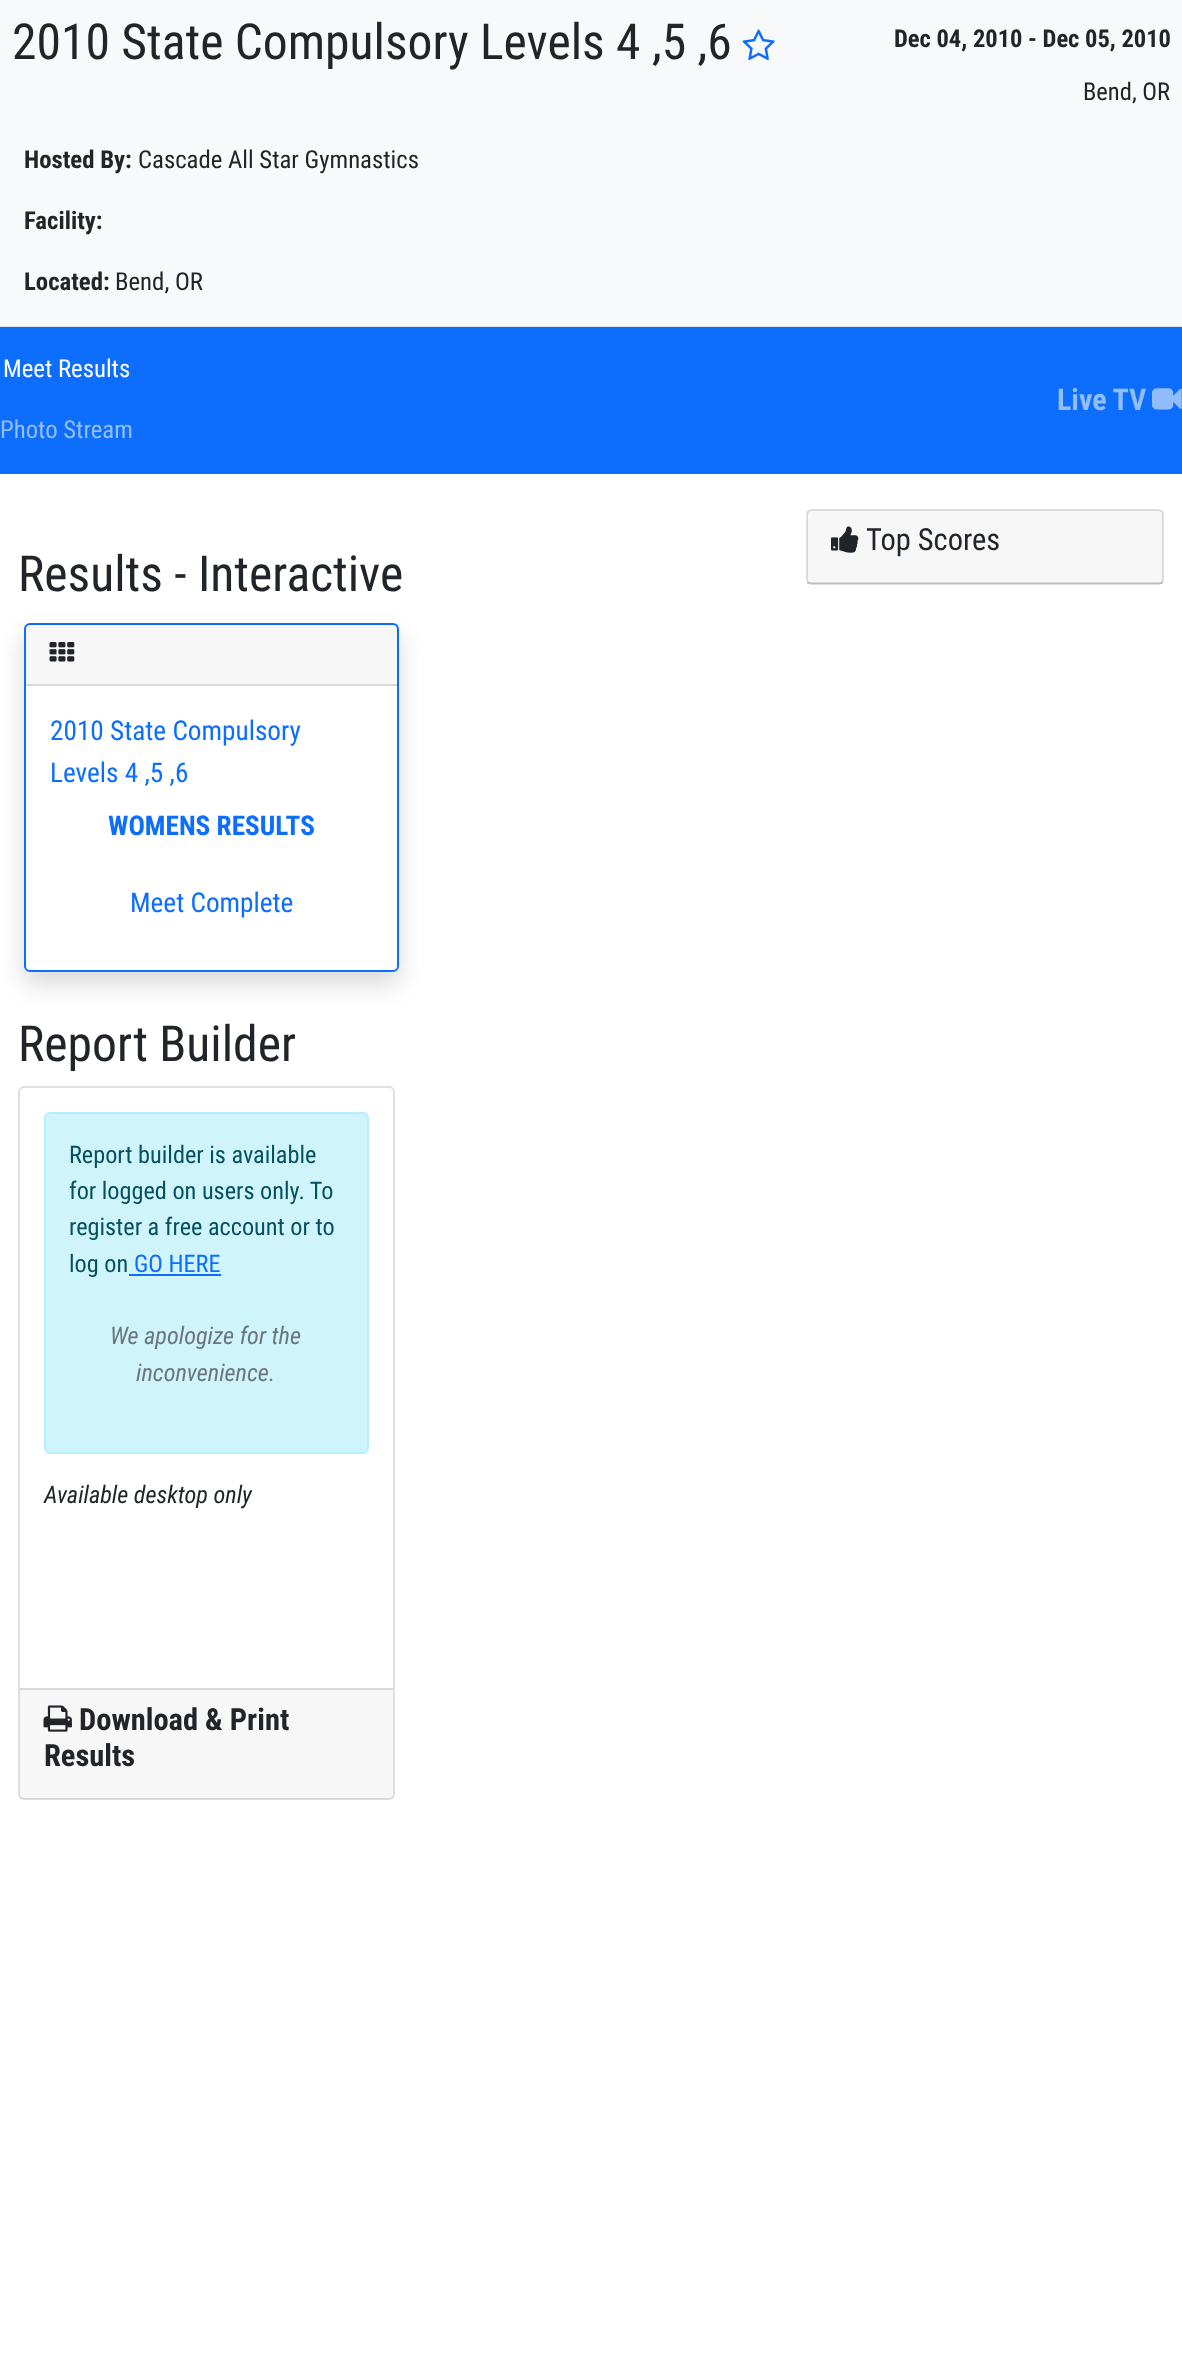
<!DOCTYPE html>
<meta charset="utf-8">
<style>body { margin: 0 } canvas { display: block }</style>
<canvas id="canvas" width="1182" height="2370"></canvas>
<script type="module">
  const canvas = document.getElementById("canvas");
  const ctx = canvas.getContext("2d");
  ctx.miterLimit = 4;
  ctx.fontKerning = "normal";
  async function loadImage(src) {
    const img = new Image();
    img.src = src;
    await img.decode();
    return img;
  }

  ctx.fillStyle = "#ffffff";
  ctx.fillRect(0, 0, 1182, 2370);
  ctx.fillStyle = "#f8f9fa";
  ctx.fillRect(0, 0, 1182, 326);
  ctx.fillStyle = "#dee2e6";
  ctx.fillRect(0, 326, 1182, 1);
  ctx.font = "49.6px Roboto Condensed";
  ctx.fillStyle = "#212529";
  ctx.fillText("2010 State Compulsory Levels 4 ,5 ,6", 12, 59);
  ctx.drawImage(await loadImage("img1.png"), 742, 29, 33, 32);
  ctx.font = "bold 24.5px Roboto Condensed";
  ctx.fillText("Dec 04, 2010 - Dec 05, 2010", 894, 47);
  ctx.font = "24.5px Roboto Condensed";
  ctx.fillText("Bend, OR", 1083, 100);
  ctx.font = "bold 24.75px Roboto Condensed";
  ctx.fillText("Hosted By:", 24, 168);
  ctx.font = "24.75px Roboto Condensed";
  ctx.fillText("Cascade All Star Gymnastics", 138, 168);
  ctx.font = "bold 24.75px Roboto Condensed";
  ctx.fillText("Facility:", 24, 229);
  ctx.fillText("Located:", 24, 290);
  ctx.font = "24.75px Roboto Condensed";
  ctx.fillText("Bend, OR", 115, 290);
  ctx.fillStyle = "#0d6efd";
  ctx.fillRect(0, 327, 1182, 147);
  ctx.fillStyle = "#ffffff";
  ctx.fillText("Meet Results", 3, 377);
  ctx.fillStyle = "#92befe";
  ctx.fillText("Photo Stream", 0, 438);
  ctx.font = "bold 30px Roboto Condensed";
  ctx.fillText("Live TV", 1057, 410);
  ctx.drawImage(await loadImage("img2.png"), 1152, 388, 30, 22);
  ctx.beginPath();
  ctx.roundRect(807, 510, 356, 74, 5);
  ctx.strokeStyle = "#dfdfdf";
  ctx.lineWidth = 2;
  ctx.stroke();
  ctx.fillStyle = "rgba(0, 0, 0, 0.03)";
  ctx.fillRect(807, 510, 356, 74);
  ctx.fillStyle = "rgba(0, 0, 0, 0.12)";
  ctx.fillRect(807, 582, 356, 2);
  ctx.drawImage(await loadImage("img3.png"), 831, 526, 28, 27);
  ctx.font = "30.5px Roboto Condensed";
  ctx.fillStyle = "#212529";
  ctx.fillText("Top Scores", 866, 550);
  ctx.font = "49.6px Roboto Condensed";
  ctx.fillText("Results - Interactive", 18, 591);
  ctx.fillStyle = "rgba(0, 0, 0, 0.15)";
  ctx.filter = "blur(12px)";
  ctx.beginPath();
  ctx.roundRect(24, 635, 375, 349, 6);
  ctx.fill();
  ctx.filter = "none";
  ctx.fillStyle = "#ffffff";
  ctx.beginPath();
  ctx.roundRect(25, 624, 373, 347, 5);
  ctx.fill();
  ctx.strokeStyle = "#0d6efd";
  ctx.stroke();
  ctx.fillStyle = "rgba(0, 0, 0, 0.03)";
  ctx.fillRect(26, 624, 372, 62);
  ctx.fillStyle = "rgba(0, 0, 0, 0.12)";
  ctx.fillRect(26, 684, 372, 2);
  ctx.drawImage(await loadImage("img4.png"), 49, 642, 26, 20);
  ctx.font = "27.25px Roboto Condensed";
  ctx.fillStyle = "#0d6efd";
  ctx.fillText("2010 State Compulsory", 50, 740);
  ctx.fillText("Levels 4 ,5 ,6", 50, 782);
  ctx.font = "bold 27.25px Roboto Condensed";
  ctx.fillText("WOMENS RESULTS", 108, 835);
  ctx.font = "27.25px Roboto Condensed";
  ctx.fillText("Meet Complete", 130, 912);
  ctx.font = "49.6px Roboto Condensed";
  ctx.fillStyle = "#212529";
  ctx.fillText("Report Builder", 18, 1061);
  ctx.beginPath();
  ctx.roundRect(19, 1087, 375, 712, 5);
  ctx.strokeStyle = "#dfdfdf";
  ctx.stroke();
  ctx.fillStyle = "#cff4fc";
  ctx.beginPath();
  ctx.roundRect(45, 1113, 323, 340, 5);
  ctx.fill();
  ctx.strokeStyle = "#b6effb";
  ctx.stroke();
  ctx.font = "24.25px Roboto Condensed";
  ctx.fillStyle = "#055160";
  ctx.fillText("Report builder is available", 69, 1163);
  ctx.fillText("for logged on users only. To", 69, 1199);
  ctx.fillText("register a free account or to", 69, 1235);
  ctx.fillText("log on", 69, 1272);
  ctx.fillStyle = "#0d6efd";
  ctx.fillText("GO HERE", 134, 1272);
  ctx.fillRect(129, 1274, 92, 2);
  ctx.font = "italic 24.25px Roboto Condensed";
  ctx.fillStyle = "#6c757d";
  ctx.fillText("We apologize for the", 110, 1344);
  ctx.fillText("inconvenience.", 136, 1381);
  ctx.fillStyle = "#212529";
  ctx.fillText("Available desktop only", 44, 1503);
  ctx.fillStyle = "rgba(0, 0, 0, 0.03)";
  ctx.fillRect(20, 1690, 373, 109);
  ctx.fillStyle = "#d8d8d8";
  ctx.fillRect(20, 1688, 373, 2);
  ctx.drawImage(await loadImage("img5.png"), 43, 1705, 29, 27);
  ctx.font = "bold 30.5px Roboto Condensed";
  ctx.fillStyle = "#212529";
  ctx.fillText("Download & Print", 79, 1730);
  ctx.fillText("Results", 44, 1766);
</script>
